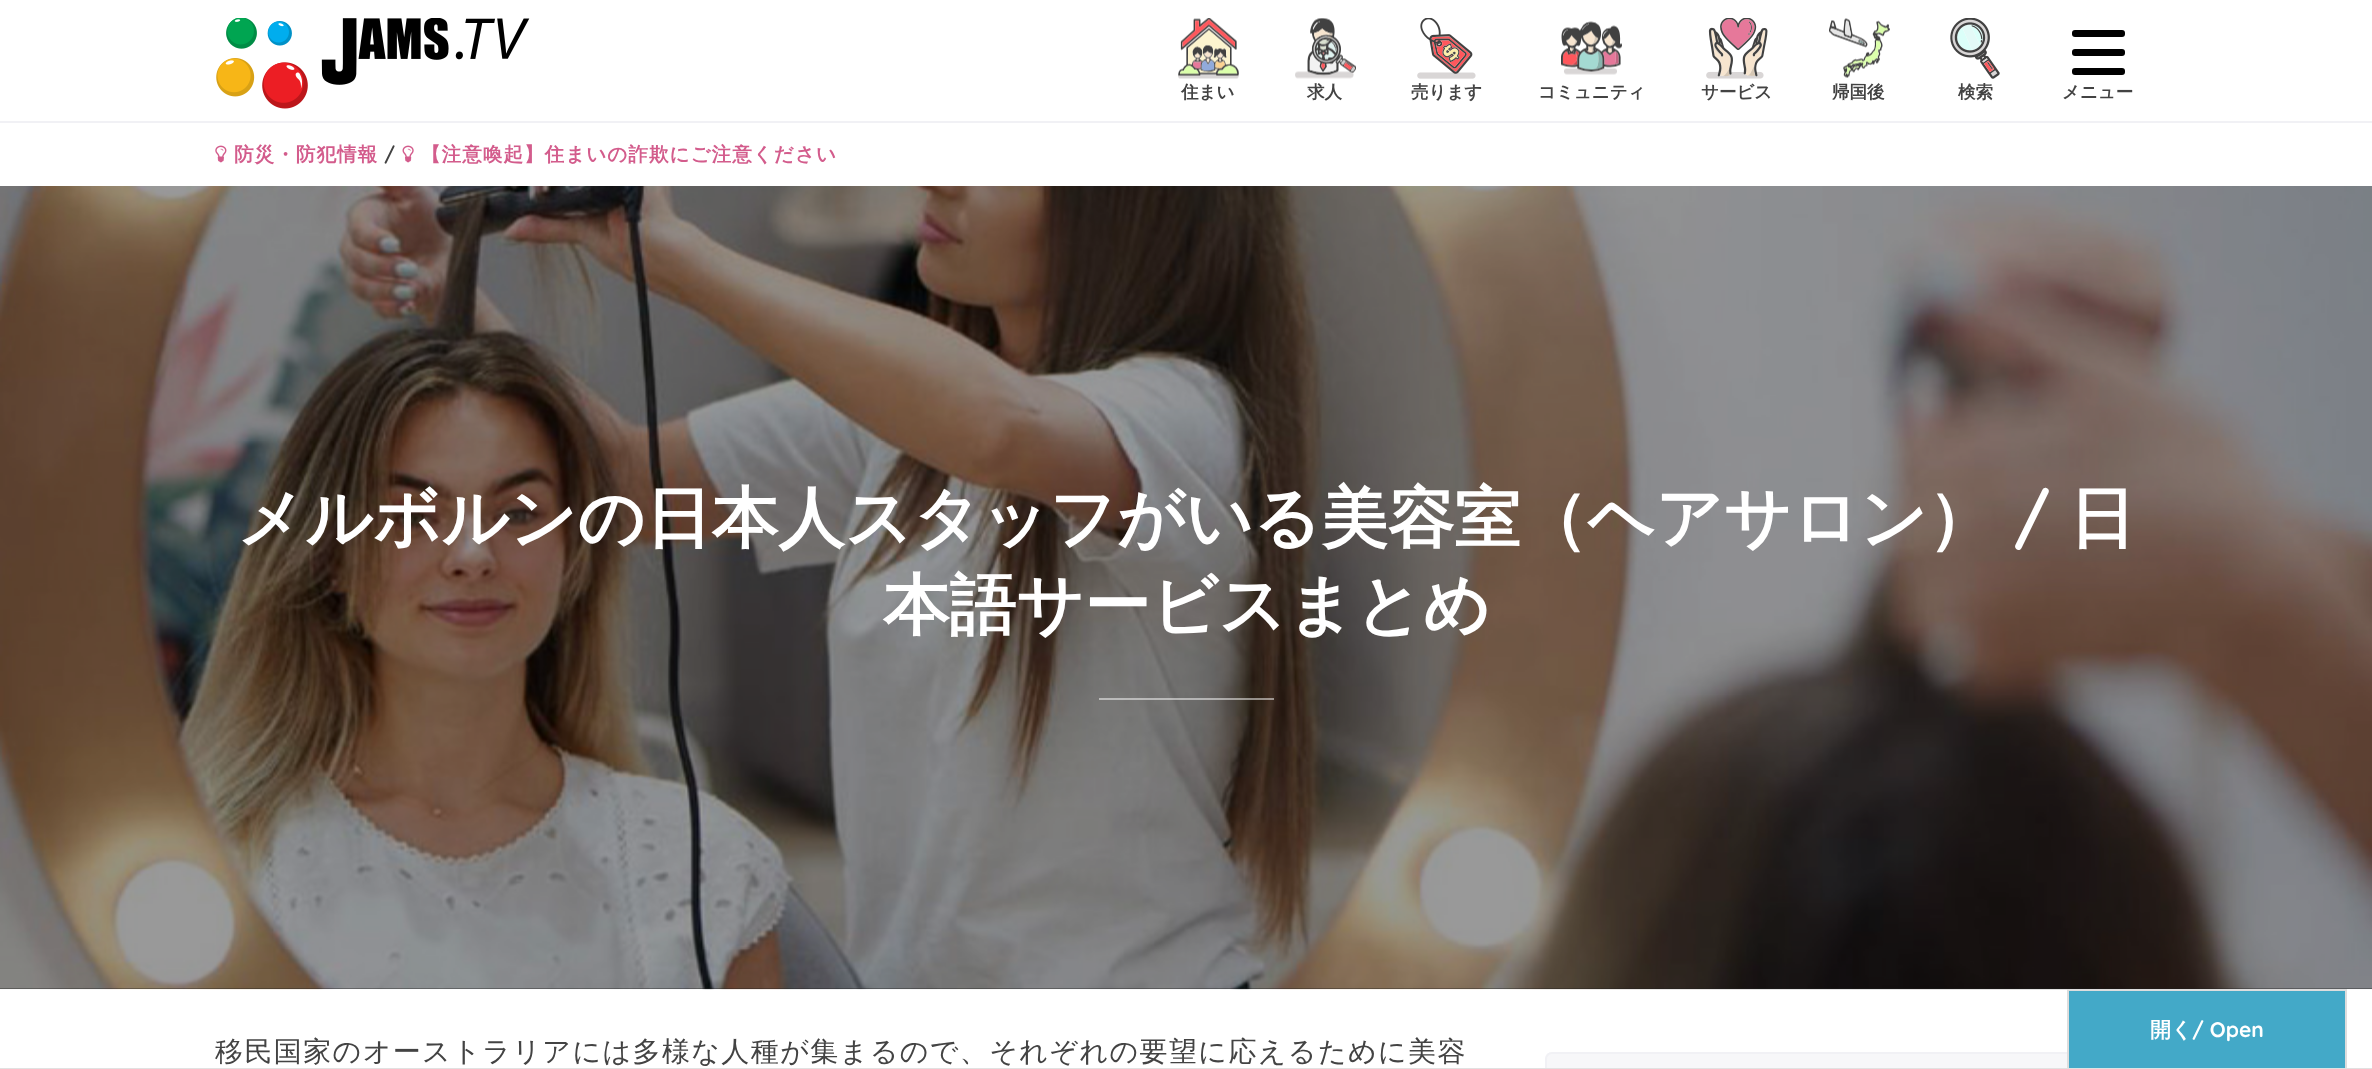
<!DOCTYPE html>
<meta charset="utf-8">
<style>body { margin: 0 } canvas { display: block }</style>
<canvas id="canvas" width="2372" height="1069"></canvas>
<script type="module">
  const canvas = document.getElementById("canvas");
  const ctx = canvas.getContext("2d");
  ctx.miterLimit = 4;
  ctx.fontKerning = "normal";
  async function loadImage(src) {
    const img = new Image();
    img.src = src;
    await img.decode();
    return img;
  }

  ctx.fillStyle = "#ffffff";
  ctx.fillRect(0, 0, 2372, 1069);
  ctx.fillStyle = "#f1f1f5";
  ctx.fillRect(0, 121, 2372, 2);
  ctx.drawImage(await loadImage("img1.png"), 216, 18, 314, 91);
  ctx.drawImage(await loadImage("img2.png"), 1178, 18, 61, 61);
  ctx.font = "bold 17.5px WenQuanYi Zen Hei";
  ctx.fillStyle = "#434343";
  ctx.fillText("住まい", 1181, 98);
  ctx.drawImage(await loadImage("img3.png"), 1295, 18, 61, 61);
  ctx.fillText("求人", 1307, 98);
  ctx.drawImage(await loadImage("img4.png"), 1417, 18, 59, 61);
  ctx.fillText("売ります", 1411, 98);
  ctx.drawImage(await loadImage("img5.png"), 1561, 21, 61, 54);
  ctx.fillText("コミュニティ", 1538, 98);
  ctx.drawImage(await loadImage("img6.png"), 1706, 18, 62, 61);
  ctx.fillText("サービス", 1701, 98);
  ctx.drawImage(await loadImage("img7.png"), 1829, 18, 61, 60);
  ctx.fillText("帰国後", 1832, 98);
  ctx.drawImage(await loadImage("img8.png"), 1950, 18, 50, 61);
  ctx.fillText("検索", 1958, 98);
  ctx.fillStyle = "#000000";
  ctx.beginPath();
  ctx.roundRect(2072, 30, 53, 7, 3);
  ctx.fill();
  ctx.beginPath();
  ctx.roundRect(2072, 49, 53, 7, 3);
  ctx.fill();
  ctx.beginPath();
  ctx.roundRect(2072, 68, 53, 7, 3);
  ctx.fill();
  ctx.fillStyle = "#434343";
  ctx.fillText("メニュー", 2062, 98);
  ctx.drawImage(await loadImage("img9.png"), 215, 145, 12, 18);
  ctx.letterSpacing = "1px";
  ctx.font = "bold 19.6px WenQuanYi Zen Hei";
  ctx.fillStyle = "#d35c8c";
  ctx.fillText("防災・防犯情報", 234, 161);
  ctx.font = "bold 19.6px Quicksand";
  ctx.fillStyle = "#434343";
  ctx.fillText("/", 384, 161);
  ctx.drawImage(await loadImage("img10.png"), 402, 145, 12, 18);
  ctx.font = "bold 19.6px WenQuanYi Zen Hei";
  ctx.fillStyle = "#d35c8c";
  ctx.fillText("【注意喚起】住まいの詐欺にご注意ください", 421, 161);
  ctx.fillStyle = "#1f1f1f";
  ctx.fillRect(0, 988, 2372, 1);
  ctx.drawImage(await loadImage("img11.png"), 0, 186, 2372, 804);
  ctx.letterSpacing = "0px";
  ctx.font = "bold 66.5px WenQuanYi Zen Hei";
  ctx.fillStyle = "#ffffff";
  ctx.fillText("メルボルンの日本人スタッフがいる美容室（ヘアサロン）", 237, 541);
  ctx.font = "bold 66.5px Quicksand";
  ctx.fillText("/", 2013, 541);
  ctx.font = "bold 66.5px WenQuanYi Zen Hei";
  ctx.fillText("日", 2069, 541);
  ctx.fillText("本語サービスまとめ", 883, 628);
  ctx.fillStyle = "rgba(255, 255, 255, 0.5)";
  ctx.fillRect(1099, 698, 175, 2);
  ctx.letterSpacing = "1.4px";
  ctx.font = "500 28px WenQuanYi Zen Hei";
  ctx.fillStyle = "#434343";
  ctx.fillText("移民国家のオーストラリアには多様な人種が集まるので、それぞれの要望に応えるために美容", 215, 1061);
  ctx.fillStyle = "#f7f7f9";
  ctx.beginPath();
  ctx.roundRect(1545, 1052, 613, 17, [7, 7, 0, 0]);
  ctx.fill();
  ctx.beginPath();
  ctx.roundRect(1546, 1053, 611, 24, 6);
  ctx.strokeStyle = "#f1f1f5";
  ctx.lineWidth = 2;
  ctx.stroke();
  ctx.fillStyle = "#e1e1e1";
  ctx.fillRect(0, 1068, 2372, 1);
  ctx.fillStyle = "#43a9c8";
  ctx.fillRect(2069, 991, 276, 77);
  ctx.fillStyle = "#dddddd";
  ctx.fillRect(2067, 989, 280, 2);
  ctx.fillRect(2345, 989, 2, 79);
  ctx.fillRect(2067, 989, 2, 79);
  ctx.letterSpacing = "0px";
  ctx.font = "bold 21px WenQuanYi Zen Hei";
  ctx.fillStyle = "#ffffff";
  ctx.fillText("開く", 2150, 1037);
  ctx.font = "bold 21px Quicksand";
  ctx.fillText("/ Open", 2192, 1037);
</script>
